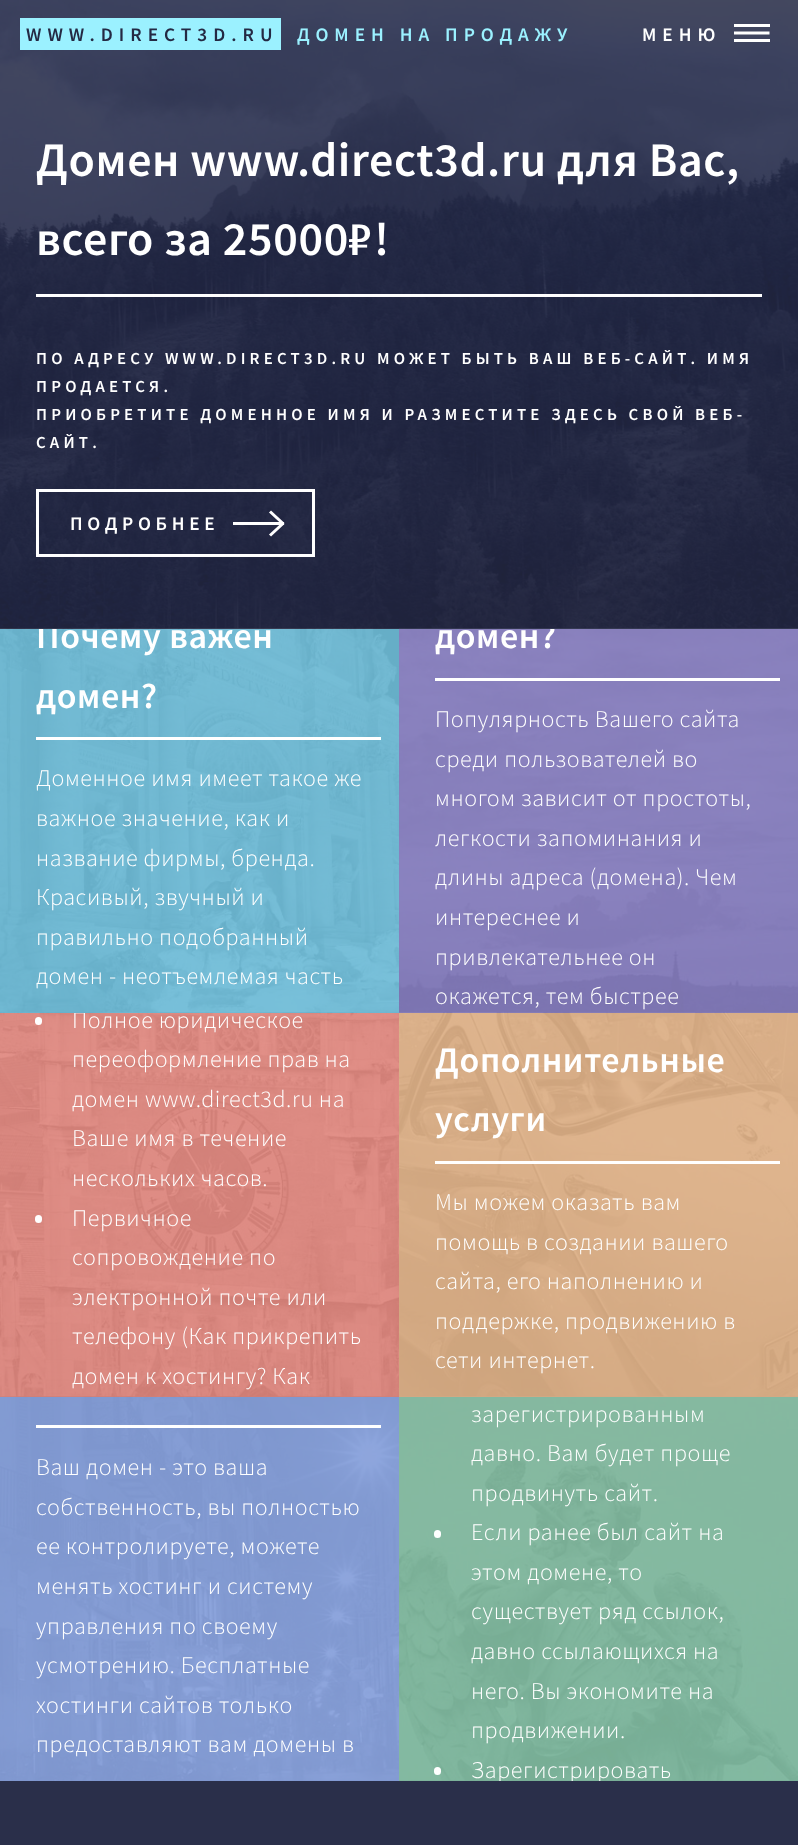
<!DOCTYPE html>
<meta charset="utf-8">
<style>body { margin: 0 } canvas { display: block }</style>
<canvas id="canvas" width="798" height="1845"></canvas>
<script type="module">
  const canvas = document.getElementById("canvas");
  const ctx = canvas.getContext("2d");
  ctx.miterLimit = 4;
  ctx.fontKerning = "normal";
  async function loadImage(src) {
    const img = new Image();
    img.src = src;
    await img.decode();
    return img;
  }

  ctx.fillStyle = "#ffffff";
  ctx.fillRect(0, 0, 798, 1845);
  ctx.drawImage(await loadImage("img1.png"), 0, 0, 798, 629);
  ctx.fillStyle = "#2a2f4a";
  ctx.fillRect(0, 1012, 798, 833);
  ctx.drawImage(await loadImage("img2.png"), 0, 628, 399, 385);
  ctx.drawImage(await loadImage("img3.png"), 399, 628, 399, 385);
  ctx.fillStyle = "rgba(36, 41, 67, 0.85)";
  ctx.fillRect(0, 0, 798, 629);
  ctx.fillStyle = "#9bf1ff";
  ctx.fillRect(20, 18, 261, 32);
  ctx.letterSpacing = "6px";
  ctx.font = "600 19.25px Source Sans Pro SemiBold";
  ctx.fillStyle = "#242943";
  ctx.fillText("WWW.DIRECT3D.RU", 26, 41);
  ctx.fillStyle = "#9bf1ff";
  ctx.fillText("ДОМЕН НА ПРОДАЖУ", 297, 41);
  ctx.fillStyle = "#ffffff";
  ctx.fillText("МЕНЮ", 642, 41);
  ctx.fillRect(734, 24, 36, 3);
  ctx.fillRect(734, 39, 36, 3);
  ctx.save();
  ctx.beginPath();
  ctx.rect(734, 9, 36, 48);
  ctx.clip();
  ctx.beginPath();
  ctx.moveTo(733.5, 33);
  ctx.lineTo(769.5, 33);
  ctx.strokeStyle = "#ffffff";
  ctx.lineWidth = 3;
  ctx.stroke();
  ctx.restore();
  ctx.letterSpacing = "0.6px";
  ctx.font = "600 48px Source Sans Pro SemiBold";
  ctx.fillText("Домен www.direct3d.ru для Вас,", 36, 176);
  ctx.fillText("всего за 25000₽!", 36, 255);
  ctx.fillRect(36, 294, 726, 3);
  ctx.letterSpacing = "4.2px";
  ctx.font = "600 16.8px Source Sans Pro SemiBold";
  ctx.fillText("ПО АДРЕСУ WWW.DIRECT3D.RU МОЖЕТ БЫТЬ ВАШ ВЕБ-САЙТ. ИМЯ", 36, 364);
  ctx.fillText("ПРОДАЕТСЯ.", 36, 392);
  ctx.fillText("ПРИОБРЕТИТЕ ДОМЕННОЕ ИМЯ И РАЗМЕСТИТЕ ЗДЕСЬ СВОЙ ВЕБ-", 36, 420);
  ctx.fillText("САЙТ.", 36, 448);
  ctx.strokeStyle = "#ffffff";
  ctx.lineWidth = 3;
  ctx.strokeRect(37.5, 490.5, 276, 65);
  ctx.letterSpacing = "4.75px";
  ctx.font = "600 19.25px Source Sans Pro SemiBold";
  ctx.fillText("ПОДРОБНЕЕ", 70, 530);
  ctx.fillRect(233, 522, 51, 3);
  ctx.beginPath();
  ctx.moveTo(270, 511.5);
  ctx.lineTo(283.5, 524);
  ctx.moveTo(270, 535.5);
  ctx.lineTo(283.5, 523);
  ctx.stroke();
  ctx.fillStyle = "#79ae96";
  ctx.fillRect(399, 1780, 399, 1);
  ctx.fillStyle = "#7f97d0";
  ctx.fillRect(0, 1780, 399, 1);
  ctx.drawImage(await loadImage("img4.png"), 0, 1012, 399, 385);
  ctx.fillStyle = "rgba(36, 41, 67, 0.25)";
  ctx.fillRect(0, 629, 399, 384);
  ctx.fillStyle = "rgba(111, 195, 223, 0.85)";
  ctx.fillRect(0, 629, 399, 384);
  ctx.save();
  ctx.beginPath();
  ctx.rect(0, 629, 399, 384);
  ctx.clip();
  ctx.letterSpacing = "0.6px";
  ctx.font = "600 36px Source Sans Pro SemiBold";
  ctx.fillStyle = "#ffffff";
  ctx.fillText("Почему важен", 36, 648);
  ctx.restore();
  ctx.letterSpacing = "0.6px";
  ctx.font = "600 36px Source Sans Pro SemiBold";
  ctx.fillStyle = "#ffffff";
  ctx.fillText("домен?", 36, 708);
  ctx.fillRect(36, 737, 345, 3);
  ctx.font = "300 24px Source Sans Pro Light";
  ctx.fillText("Доменное имя имеет такое же", 36, 786);
  ctx.fillText("важное значение, как и", 36, 826);
  ctx.fillText("название фирмы, бренда.", 36, 866);
  ctx.fillText("Красивый, звучный и", 36, 905);
  ctx.fillText("правильно подобранный", 36, 945);
  ctx.fillText("домен - неотъемлемая часть", 36, 984);
  ctx.drawImage(await loadImage("img5.png"), 399, 1012, 399, 385);
  ctx.fillStyle = "rgba(36, 41, 67, 0.25)";
  ctx.fillRect(399, 629, 399, 384);
  ctx.fillStyle = "rgba(141, 130, 196, 0.85)";
  ctx.fillRect(399, 629, 399, 384);
  ctx.save();
  ctx.beginPath();
  ctx.rect(399, 629, 399, 384);
  ctx.clip();
  ctx.font = "600 36px Source Sans Pro SemiBold";
  ctx.fillStyle = "#ffffff";
  ctx.fillText("домен?", 435, 648);
  ctx.restore();
  ctx.fillStyle = "#ffffff";
  ctx.fillRect(435, 678, 345, 3);
  ctx.fillText("Популярность Вашего сайта", 435, 727);
  ctx.fillText("среди пользователей во", 435, 767);
  ctx.fillText("многом зависит от простоты,", 435, 806);
  ctx.fillText("легкости запоминания и", 435, 846);
  ctx.fillText("длины адреса (домена). Чем", 435, 885);
  ctx.fillText("интереснее и", 435, 925);
  ctx.fillText("привлекательнее он", 435, 965);
  ctx.fillText("окажется, тем быстрее", 435, 1004);
  ctx.drawImage(await loadImage("img6.png"), 0, 1396, 399, 385);
  ctx.fillStyle = "rgba(36, 41, 67, 0.25)";
  ctx.fillRect(0, 1013, 399, 384);
  ctx.fillStyle = "rgba(236, 141, 129, 0.85)";
  ctx.fillRect(0, 1013, 399, 384);
  ctx.fillStyle = "#ffffff";
  ctx.beginPath();
  ctx.roundRect(35, 1017, 7, 8, 3.5);
  ctx.fill();
  ctx.save();
  ctx.beginPath();
  ctx.rect(0, 1013, 399, 384);
  ctx.clip();
  ctx.fillText("Полное юридическое", 72, 1028);
  ctx.restore();
  ctx.fillText("переоформление прав на", 72, 1067);
  ctx.fillText("домен www.direct3d.ru на", 72, 1107);
  ctx.fillText("Ваше имя в течение", 72, 1146);
  ctx.fillText("нескольких часов.", 72, 1186);
  ctx.beginPath();
  ctx.roundRect(35, 1215, 7, 8, 3.5);
  ctx.fill();
  ctx.fillText("Первичное", 72, 1226);
  ctx.fillText("сопровождение по", 72, 1265);
  ctx.fillText("электронной почте или", 72, 1305);
  ctx.fillText("телефону (Как прикрепить", 72, 1344);
  ctx.fillText("домен к хостингу? Как", 72, 1384);
  ctx.drawImage(await loadImage("img7.png"), 399, 1396, 399, 385);
  ctx.fillStyle = "rgba(36, 41, 67, 0.25)";
  ctx.fillRect(399, 1013, 399, 384);
  ctx.fillStyle = "rgba(231, 183, 136, 0.85)";
  ctx.fillRect(399, 1013, 399, 384);
  ctx.font = "600 36px Source Sans Pro SemiBold";
  ctx.fillStyle = "#ffffff";
  ctx.fillText("Дополнительные", 435, 1072);
  ctx.fillText("услуги", 435, 1131);
  ctx.fillRect(435, 1161, 345, 3);
  ctx.font = "300 24px Source Sans Pro Light";
  ctx.fillText("Мы можем оказать вам", 435, 1210);
  ctx.fillText("помощь в создании вашего", 435, 1250);
  ctx.fillText("сайта, его наполнению и", 435, 1289);
  ctx.fillText("поддержке, продвижению в", 435, 1329);
  ctx.fillText("сети интернет.", 435, 1368);
  ctx.fillRect(36, 1425, 345, 3);
  ctx.fillText("Ваш домен - это ваша", 36, 1475);
  ctx.fillText("собственность, вы полностью", 36, 1515);
  ctx.fillText("ее контролируете, можете", 36, 1554);
  ctx.fillText("менять хостинг и систему", 36, 1594);
  ctx.fillText("управления по своему", 36, 1634);
  ctx.fillText("усмотрению. Бесплатные", 36, 1673);
  ctx.fillText("хостинги сайтов только", 36, 1713);
  ctx.fillText("предоставляют вам домены в", 36, 1752);
  ctx.fillText("зарегистрированным", 471, 1422);
  ctx.fillText("давно. Вам будет проще", 471, 1461);
  ctx.fillText("продвинуть сайт.", 471, 1501);
  ctx.beginPath();
  ctx.roundRect(434, 1530, 7, 8, 3.5);
  ctx.fill();
  ctx.fillText("Если ранее был сайт на", 471, 1540);
  ctx.fillText("этом домене, то", 471, 1580);
  ctx.fillText("существует ряд ссылок,", 471, 1619);
  ctx.fillText("давно ссылающихся на", 471, 1659);
  ctx.fillText("него. Вы экономите на", 471, 1699);
  ctx.fillText("продвижении.", 471, 1738);
  ctx.beginPath();
  ctx.roundRect(434, 1767, 7, 8, 3.5);
  ctx.fill();
  ctx.save();
  ctx.beginPath();
  ctx.rect(399, 1397, 399, 384);
  ctx.clip();
  ctx.fillText("Зарегистрировать", 471, 1778);
  ctx.restore();
</script>
